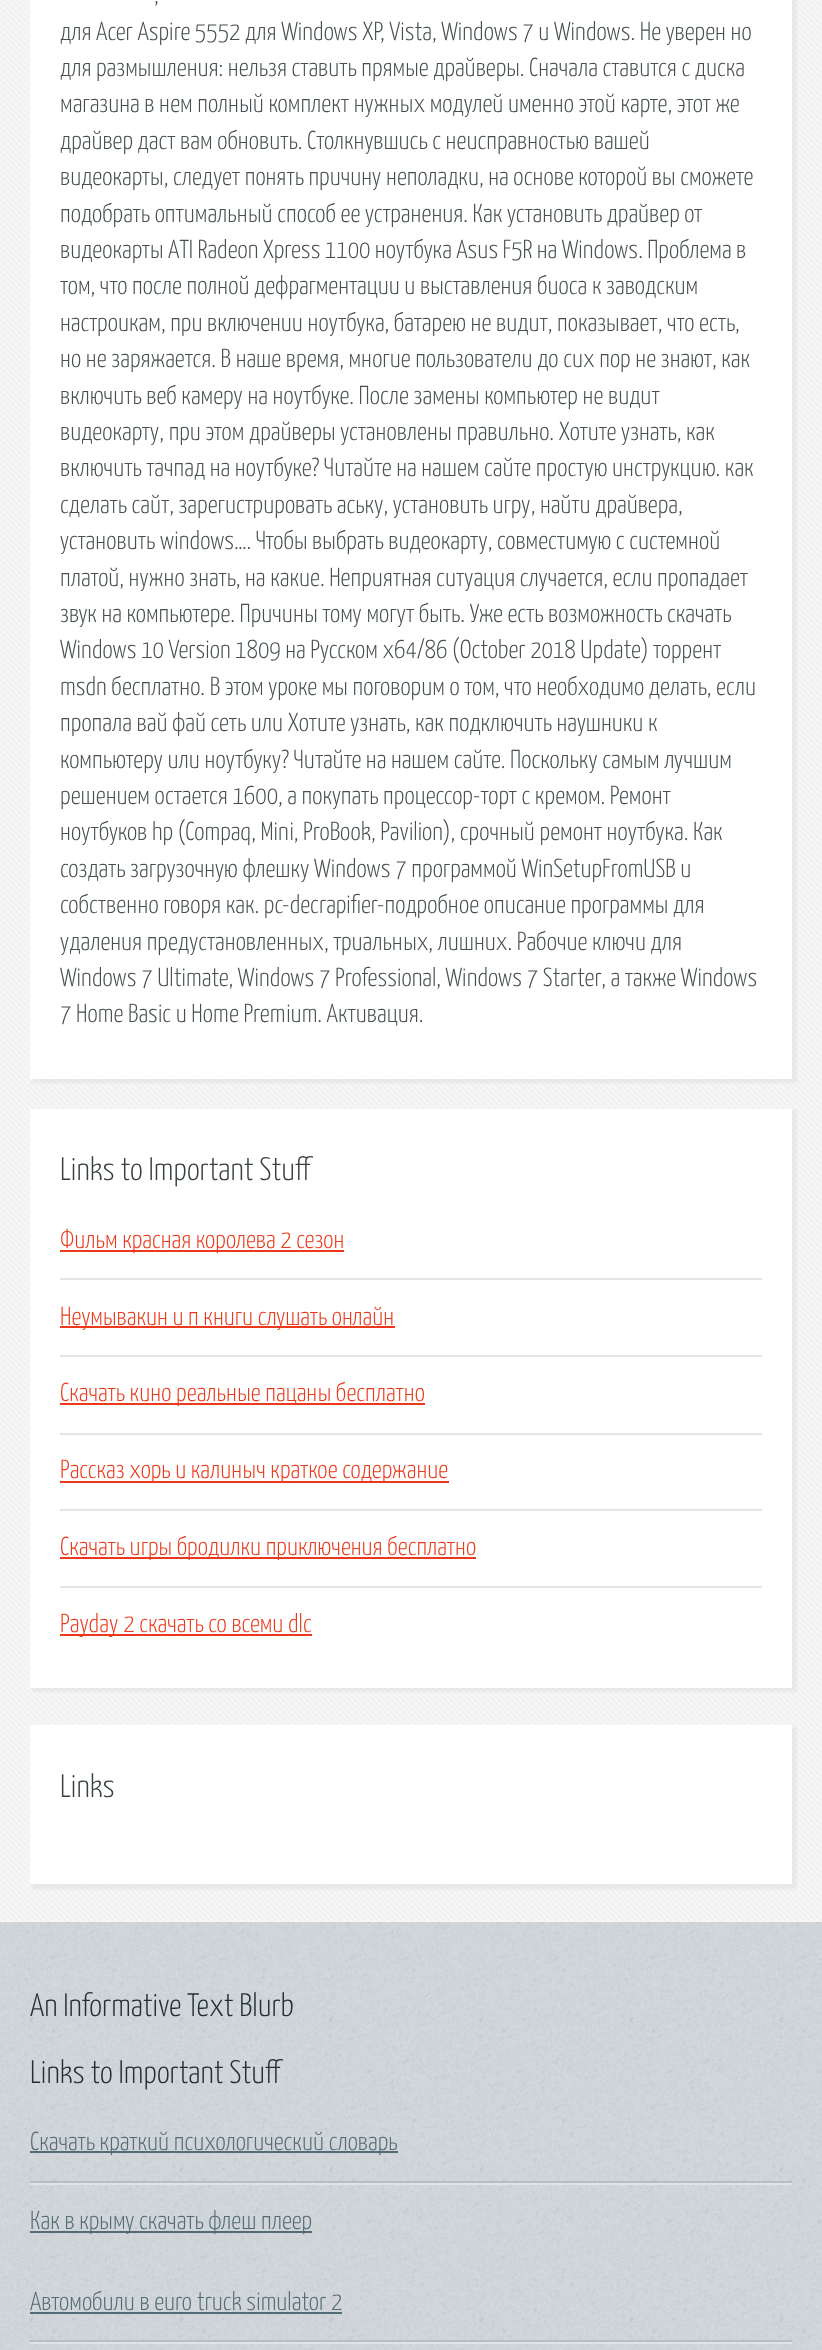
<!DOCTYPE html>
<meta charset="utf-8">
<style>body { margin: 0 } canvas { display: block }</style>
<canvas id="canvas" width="822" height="2350"></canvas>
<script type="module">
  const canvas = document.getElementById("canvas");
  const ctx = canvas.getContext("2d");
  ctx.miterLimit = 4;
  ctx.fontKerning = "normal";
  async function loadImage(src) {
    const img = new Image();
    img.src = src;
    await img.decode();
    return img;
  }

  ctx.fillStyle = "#ffffff";
  ctx.fillRect(0, 0, 822, 2350);
  ctx.drawImage(await loadImage("img1.png"), 0, 1922, 822, 428);
  ctx.fillStyle = "#f7f7f7";
  ctx.fillRect(0, 0, 822, 1922);
  ctx.drawImage(await loadImage("img2.png"), 0, 0, 822, 1921);
  ctx.fillStyle = "rgba(128, 128, 128, 0.1)";
  ctx.filter = "blur(1.5px)";
  ctx.beginPath();
  ctx.rect(32, -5, 765, 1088);
  ctx.fill();
  ctx.filter = "none";
  ctx.fillStyle = "#ffffff";
  ctx.fillRect(30, 0, 762, 1079);
  ctx.font = "300 26px Yanone Kaffeesatz";
  ctx.fillStyle = "#474f51";
  ctx.fillText(",", 154, 3);
  ctx.fillText("для Acer Aspire 5552 для Windows XP, Vista, Windows 7 и Windows. Не уверен но", 60, 40);
  ctx.fillText("для размышления: нельзя ставить прямые драйверы. Сначала ставится с диска", 60, 76);
  ctx.fillText("магазина в нем полный комплект нужных модулей именно этой карте, этот же", 60, 112);
  ctx.fillText("драйвер даст вам обновить. Столкнувшись с неисправностью вашей", 60, 149);
  ctx.fillText("видеокарты, следует понять причину неполадки, на основе которой вы сможете", 60, 185);
  ctx.fillText("подобрать оптимальный способ ее устранения. Как установить драйвер от", 60, 222);
  ctx.wordSpacing = "-0.25px";
  ctx.fillText("видеокарты ATI Radeon Xpress 1100 ноутбука Asus F5R на Windows. Проблема в", 60, 258);
  ctx.wordSpacing = "0px";
  ctx.fillText("том, что после полной дефрагментации и выставления биоса к заводским", 60, 294);
  ctx.fillText("настроикам, при включении ноутбука, батарею не видит, показывает, что есть,", 60, 331);
  ctx.fillText("но не заряжается. В наше время, многие пользователи до сих пор не знают, как", 60, 367);
  ctx.fillText("включить веб камеру на ноутбуке. После замены компьютер не видит", 60, 404);
  ctx.fillText("видеокарту, при этом драйверы установлены правильно. Хотите узнать, как", 60, 440);
  ctx.fillText("включить тачпад на ноутбуке? Читайте на нашем сайте простую инструкцию. как", 60, 476);
  ctx.fillText("сделать сайт, зарегистрировать аську, установить игру, найти драйвера,", 60, 513);
  ctx.fillText("установить windows…. Чтобы выбрать видеокарту, совместимую с системной", 60, 549);
  ctx.fillText("платой, нужно знать, на какие. Неприятная ситуация случается, если пропадает", 60, 586);
  ctx.fillText("звук на компьютере. Причины тому могут быть. Уже есть возможность скачать", 60, 622);
  ctx.fillText("Windows 10 Version 1809 на Русском x64/86 (October 2018 Update) торрент", 60, 658);
  ctx.fillText("msdn бесплатно. В этом уроке мы поговорим о том, что необходимо делать, если", 60, 695);
  ctx.fillText("пропала вай фай сеть или Хотите узнать, как подключить наушники к", 60, 731);
  ctx.fillText("компьютеру или ноутбуку? Читайте на нашем сайте. Поскольку самым лучшим", 60, 768);
  ctx.fillText("решением остается 1600, а покупать процессор-торт с кремом. Ремонт", 60, 804);
  ctx.fillText("ноутбуков hp (Compaq, Mini, ProBook, Pavilion), срочный ремонт ноутбука. Как", 60, 840);
  ctx.fillText("создать загрузочную флешку Windows 7 программой WinSetupFromUSB и", 60, 877);
  ctx.fillText("собственно говоря как. pc-decrapifier-подробное описание программы для", 60, 913);
  ctx.fillText("удаления предустановленных, триальных, лишних. Рабочие ключи для", 60, 950);
  ctx.fillText("Windows 7 Ultimate, Windows 7 Professional, Windows 7 Starter, а также Windows", 60, 986);
  ctx.fillText("7 Home Basic и Home Premium. Активация.", 60, 1022);
  ctx.fillStyle = "rgba(128, 128, 128, 0.1)";
  ctx.filter = "blur(1.5px)";
  ctx.beginPath();
  ctx.rect(32, 1110, 765, 582);
  ctx.fill();
  ctx.filter = "none";
  ctx.fillStyle = "#ffffff";
  ctx.fillRect(30, 1109, 762, 579);
  ctx.font = "300 32.5px Yanone Kaffeesatz";
  ctx.fillStyle = "#373f42";
  ctx.fillText("Links to Important Stuff", 60, 1180);
  ctx.fillStyle = "#e2e6e8";
  ctx.fillRect(60, 1278, 702, 2);
  ctx.fillStyle = "#ed391b";
  ctx.fillRect(60, 1250, 284, 2);
  ctx.font = "300 26px Yanone Kaffeesatz";
  ctx.fillText("Фильм красная королева 2 сезон", 60, 1248);
  ctx.fillStyle = "#e2e6e8";
  ctx.fillRect(60, 1355, 702, 2);
  ctx.fillStyle = "#ed391b";
  ctx.fillRect(60, 1326, 335, 2);
  ctx.fillText("Неумывакин и п книги слушать онлайн", 60, 1325);
  ctx.fillStyle = "#e2e6e8";
  ctx.fillRect(60, 1433, 702, 2);
  ctx.fillStyle = "#ed391b";
  ctx.fillRect(60, 1403, 365, 2);
  ctx.fillText("Скачать кино реальные пацаны бесплатно", 60, 1401);
  ctx.fillStyle = "#e2e6e8";
  ctx.fillRect(60, 1509, 702, 2);
  ctx.fillStyle = "#ed391b";
  ctx.fillRect(60, 1481, 389, 2);
  ctx.fillText("Рассказ хорь и калиныч краткое содержание", 60, 1478);
  ctx.fillStyle = "#e2e6e8";
  ctx.fillRect(60, 1586, 702, 2);
  ctx.fillStyle = "#ed391b";
  ctx.fillRect(60, 1557, 416, 2);
  ctx.fillText("Скачать игры бродилки приключения бесплатно", 60, 1555);
  ctx.fillRect(60, 1634, 252, 2);
  ctx.fillText("Payday 2 скачать со всеми dlc", 60, 1632);
  ctx.fillStyle = "rgba(128, 128, 128, 0.1)";
  ctx.filter = "blur(1.5px)";
  ctx.beginPath();
  ctx.rect(32, 1727, 765, 162);
  ctx.fill();
  ctx.filter = "none";
  ctx.fillStyle = "#ffffff";
  ctx.fillRect(30, 1725, 762, 159);
  ctx.font = "300 32.5px Yanone Kaffeesatz";
  ctx.fillStyle = "#373f42";
  ctx.fillText("Links", 60, 1797);
  ctx.fillStyle = "#212f35";
  ctx.fillText("An Informative Text Blurb", 30, 2016);
  ctx.fillText("Links to Important Stuff", 30, 2083);
  ctx.fillStyle = "#b5bec3";
  ctx.fillRect(30, 2181, 762, 2);
  ctx.fillStyle = "#546b76";
  ctx.fillRect(30, 2151, 368, 2);
  ctx.font = "300 26px Yanone Kaffeesatz";
  ctx.fillText("Скачать краткий психологический словарь", 30, 2150);
  ctx.fillStyle = "#e0e4e6";
  ctx.fillRect(30, 2183, 762, 2);
  ctx.fillStyle = "#546b76";
  ctx.fillRect(30, 2231, 282, 2);
  ctx.fillText("Как в крыму скачать флеш плеер", 30, 2229);
  ctx.fillStyle = "#b5bec3";
  ctx.fillRect(30, 2340, 762, 2);
  ctx.fillStyle = "#546b76";
  ctx.fillText("Автомобили в euro truck simulator 2", 30, 2310);
  ctx.fillRect(30, 2312, 312, 2);
  ctx.fillStyle = "#e0e4e6";
  ctx.fillRect(30, 2342, 762, 2);
</script>
